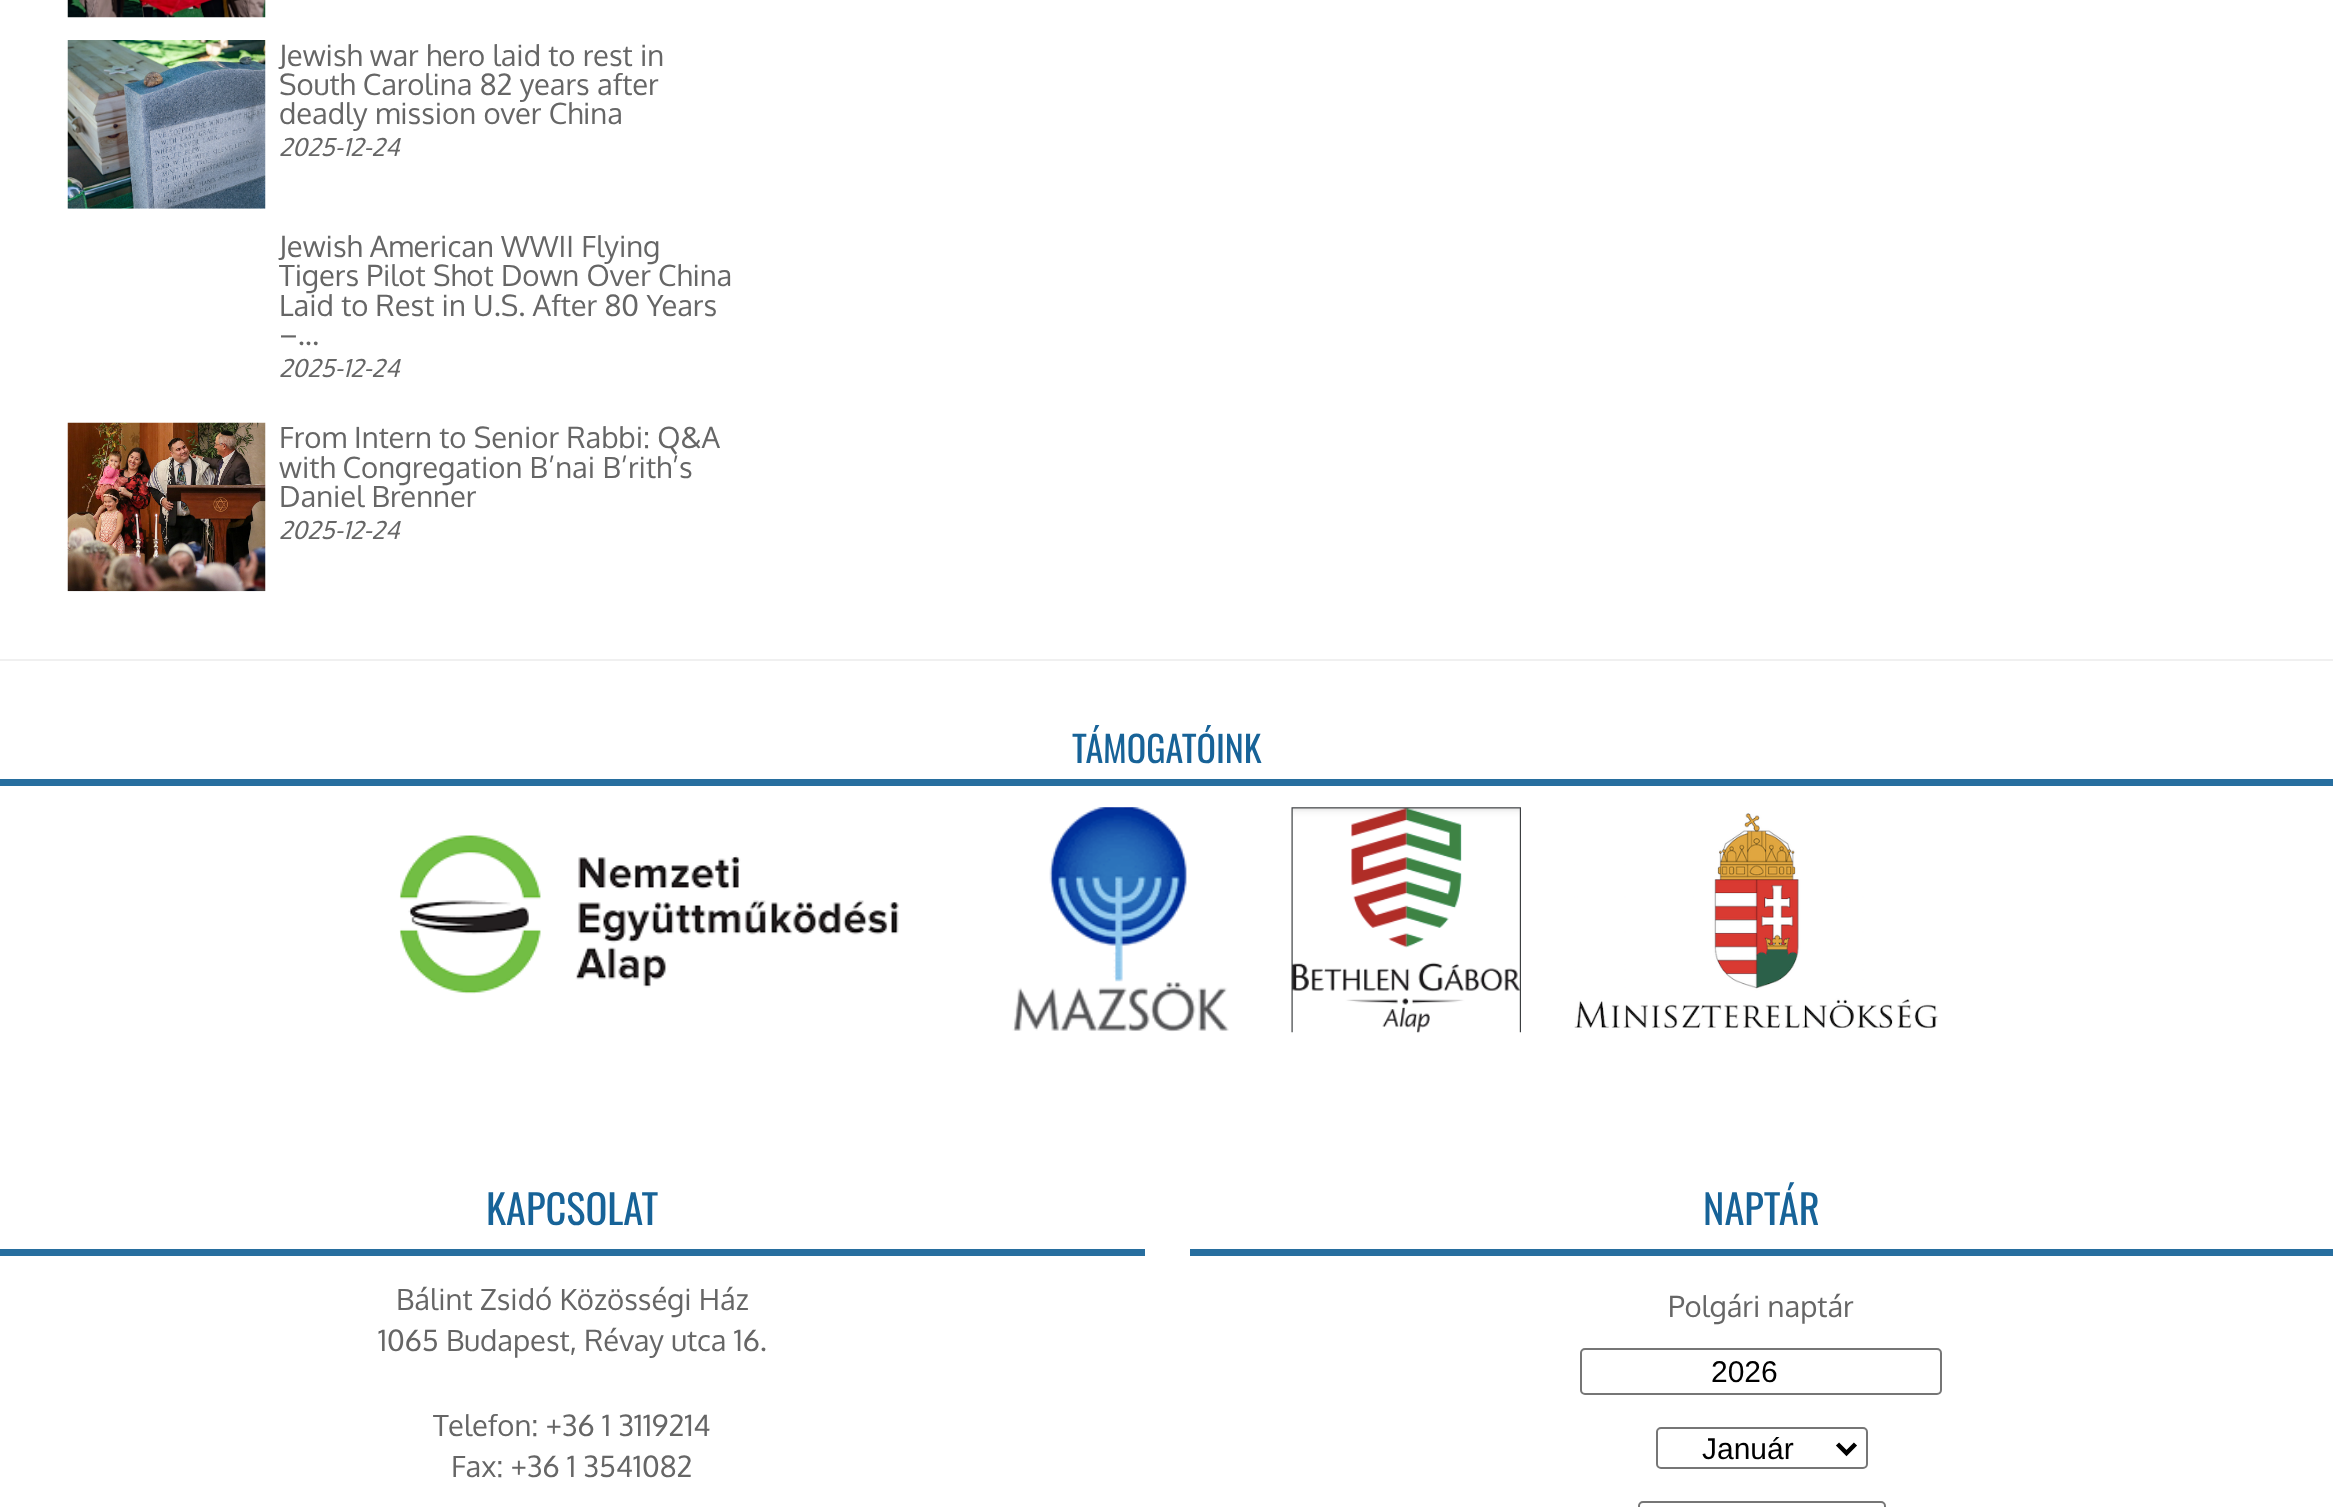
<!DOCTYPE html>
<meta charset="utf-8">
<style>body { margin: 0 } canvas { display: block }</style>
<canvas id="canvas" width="2333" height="1507"></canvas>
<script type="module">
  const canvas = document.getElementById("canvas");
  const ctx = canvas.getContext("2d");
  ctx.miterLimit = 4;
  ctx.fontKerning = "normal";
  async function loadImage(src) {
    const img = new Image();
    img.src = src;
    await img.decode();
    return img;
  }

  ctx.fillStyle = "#ffffff";
  ctx.fillRect(0, 0, 2333, 1507);
  ctx.drawImage(await loadImage("img1.png"), 67, 0, 199, 18);
  ctx.drawImage(await loadImage("img2.png"), 67, 40, 199, 169);
  ctx.font = "29.25px Oxygen";
  ctx.fillStyle = "#666666";
  ctx.fillText("Jewish war hero laid to rest in", 279, 66);
  ctx.fillText("South Carolina 82 years after", 279, 95);
  ctx.fillText("deadly mission over China", 279, 124);
  ctx.font = "italic 24.5px Oxygen";
  ctx.fillText("2025-12-24", 279, 156);
  ctx.font = "29.25px Oxygen";
  ctx.fillText("Jewish American WWII Flying", 279, 257);
  ctx.fillText("Tigers Pilot Shot Down Over China", 279, 286);
  ctx.fillText("Laid to Rest in U.S. After 80 Years", 279, 316);
  ctx.fillText("–...", 279, 345);
  ctx.font = "italic 24.5px Oxygen";
  ctx.fillText("2025-12-24", 279, 377);
  ctx.drawImage(await loadImage("img3.png"), 67, 422, 199, 170);
  ctx.font = "29.25px Oxygen";
  ctx.fillText("From Intern to Senior Rabbi: Q&A", 279, 448);
  ctx.fillText("with Congregation B’nai B’rith’s", 279, 478);
  ctx.fillText("Daniel Brenner", 279, 507);
  ctx.font = "italic 24.5px Oxygen";
  ctx.fillText("2025-12-24", 279, 539);
  ctx.fillStyle = "#f0f0f0";
  ctx.fillRect(0, 659, 2333, 2);
  ctx.fillStyle = "#276e9f";
  ctx.fillRect(0, 779, 2333, 7);
  ctx.font = "36px Oswald";
  ctx.fillStyle = "#176398";
  ctx.fillText("TÁMOGATÓINK", 1072, 763);
  ctx.drawImage(await loadImage("img4.png"), 399, 835, 500, 159);
  ctx.drawImage(await loadImage("img5.png"), 1012, 807, 217, 225);
  ctx.drawImage(await loadImage("img6.png"), 1291, 807, 230, 226);
  ctx.drawImage(await loadImage("img7.png"), 1574, 813, 364, 215);
  ctx.fillStyle = "#276e9f";
  ctx.fillRect(0, 1249, 1145, 7);
  ctx.font = "40.5px Oswald";
  ctx.fillStyle = "#176398";
  ctx.fillText("KAPCSOLAT", 486, 1225);
  ctx.font = "29.25px Oxygen";
  ctx.fillStyle = "#666666";
  ctx.fillText("Bálint Zsidó Közösségi Ház", 396, 1310);
  ctx.fillText("1065 Budapest, Révay utca 16.", 378, 1351);
  ctx.fillText("Telefon: +36 1 3119214", 433, 1436);
  ctx.fillText("Fax: +36 1 3541082", 451, 1477);
  ctx.fillStyle = "#276e9f";
  ctx.fillRect(1190, 1249, 1143, 7);
  ctx.font = "40.5px Oswald";
  ctx.fillStyle = "#176398";
  ctx.fillText("NAPTÁR", 1703, 1225);
  ctx.font = "29.25px Oxygen";
  ctx.fillStyle = "#666666";
  ctx.fillText("Polgári naptár", 1668, 1317);
  ctx.beginPath();
  ctx.roundRect(1581, 1349, 360, 45, 4);
  ctx.strokeStyle = "#767676";
  ctx.lineWidth = 2;
  ctx.stroke();
  ctx.font = "30px Liberation Sans";
  ctx.fillStyle = "#000000";
  ctx.fillText("2026", 1711, 1382);
  ctx.beginPath();
  ctx.roundRect(1657, 1428, 210, 40, 4);
  ctx.stroke();
  ctx.beginPath();
  ctx.moveTo(1837.5, 1444);
  ctx.lineTo(1846.5, 1453);
  ctx.lineTo(1855.5, 1444);
  ctx.strokeStyle = "#000000";
  ctx.lineWidth = 4.5;
  ctx.stroke();
  ctx.fillText("Január", 1702, 1459);
  ctx.beginPath();
  ctx.roundRect(1639, 1502, 246, 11, 4);
  ctx.strokeStyle = "#767676";
  ctx.lineWidth = 2;
  ctx.stroke();
</script>
